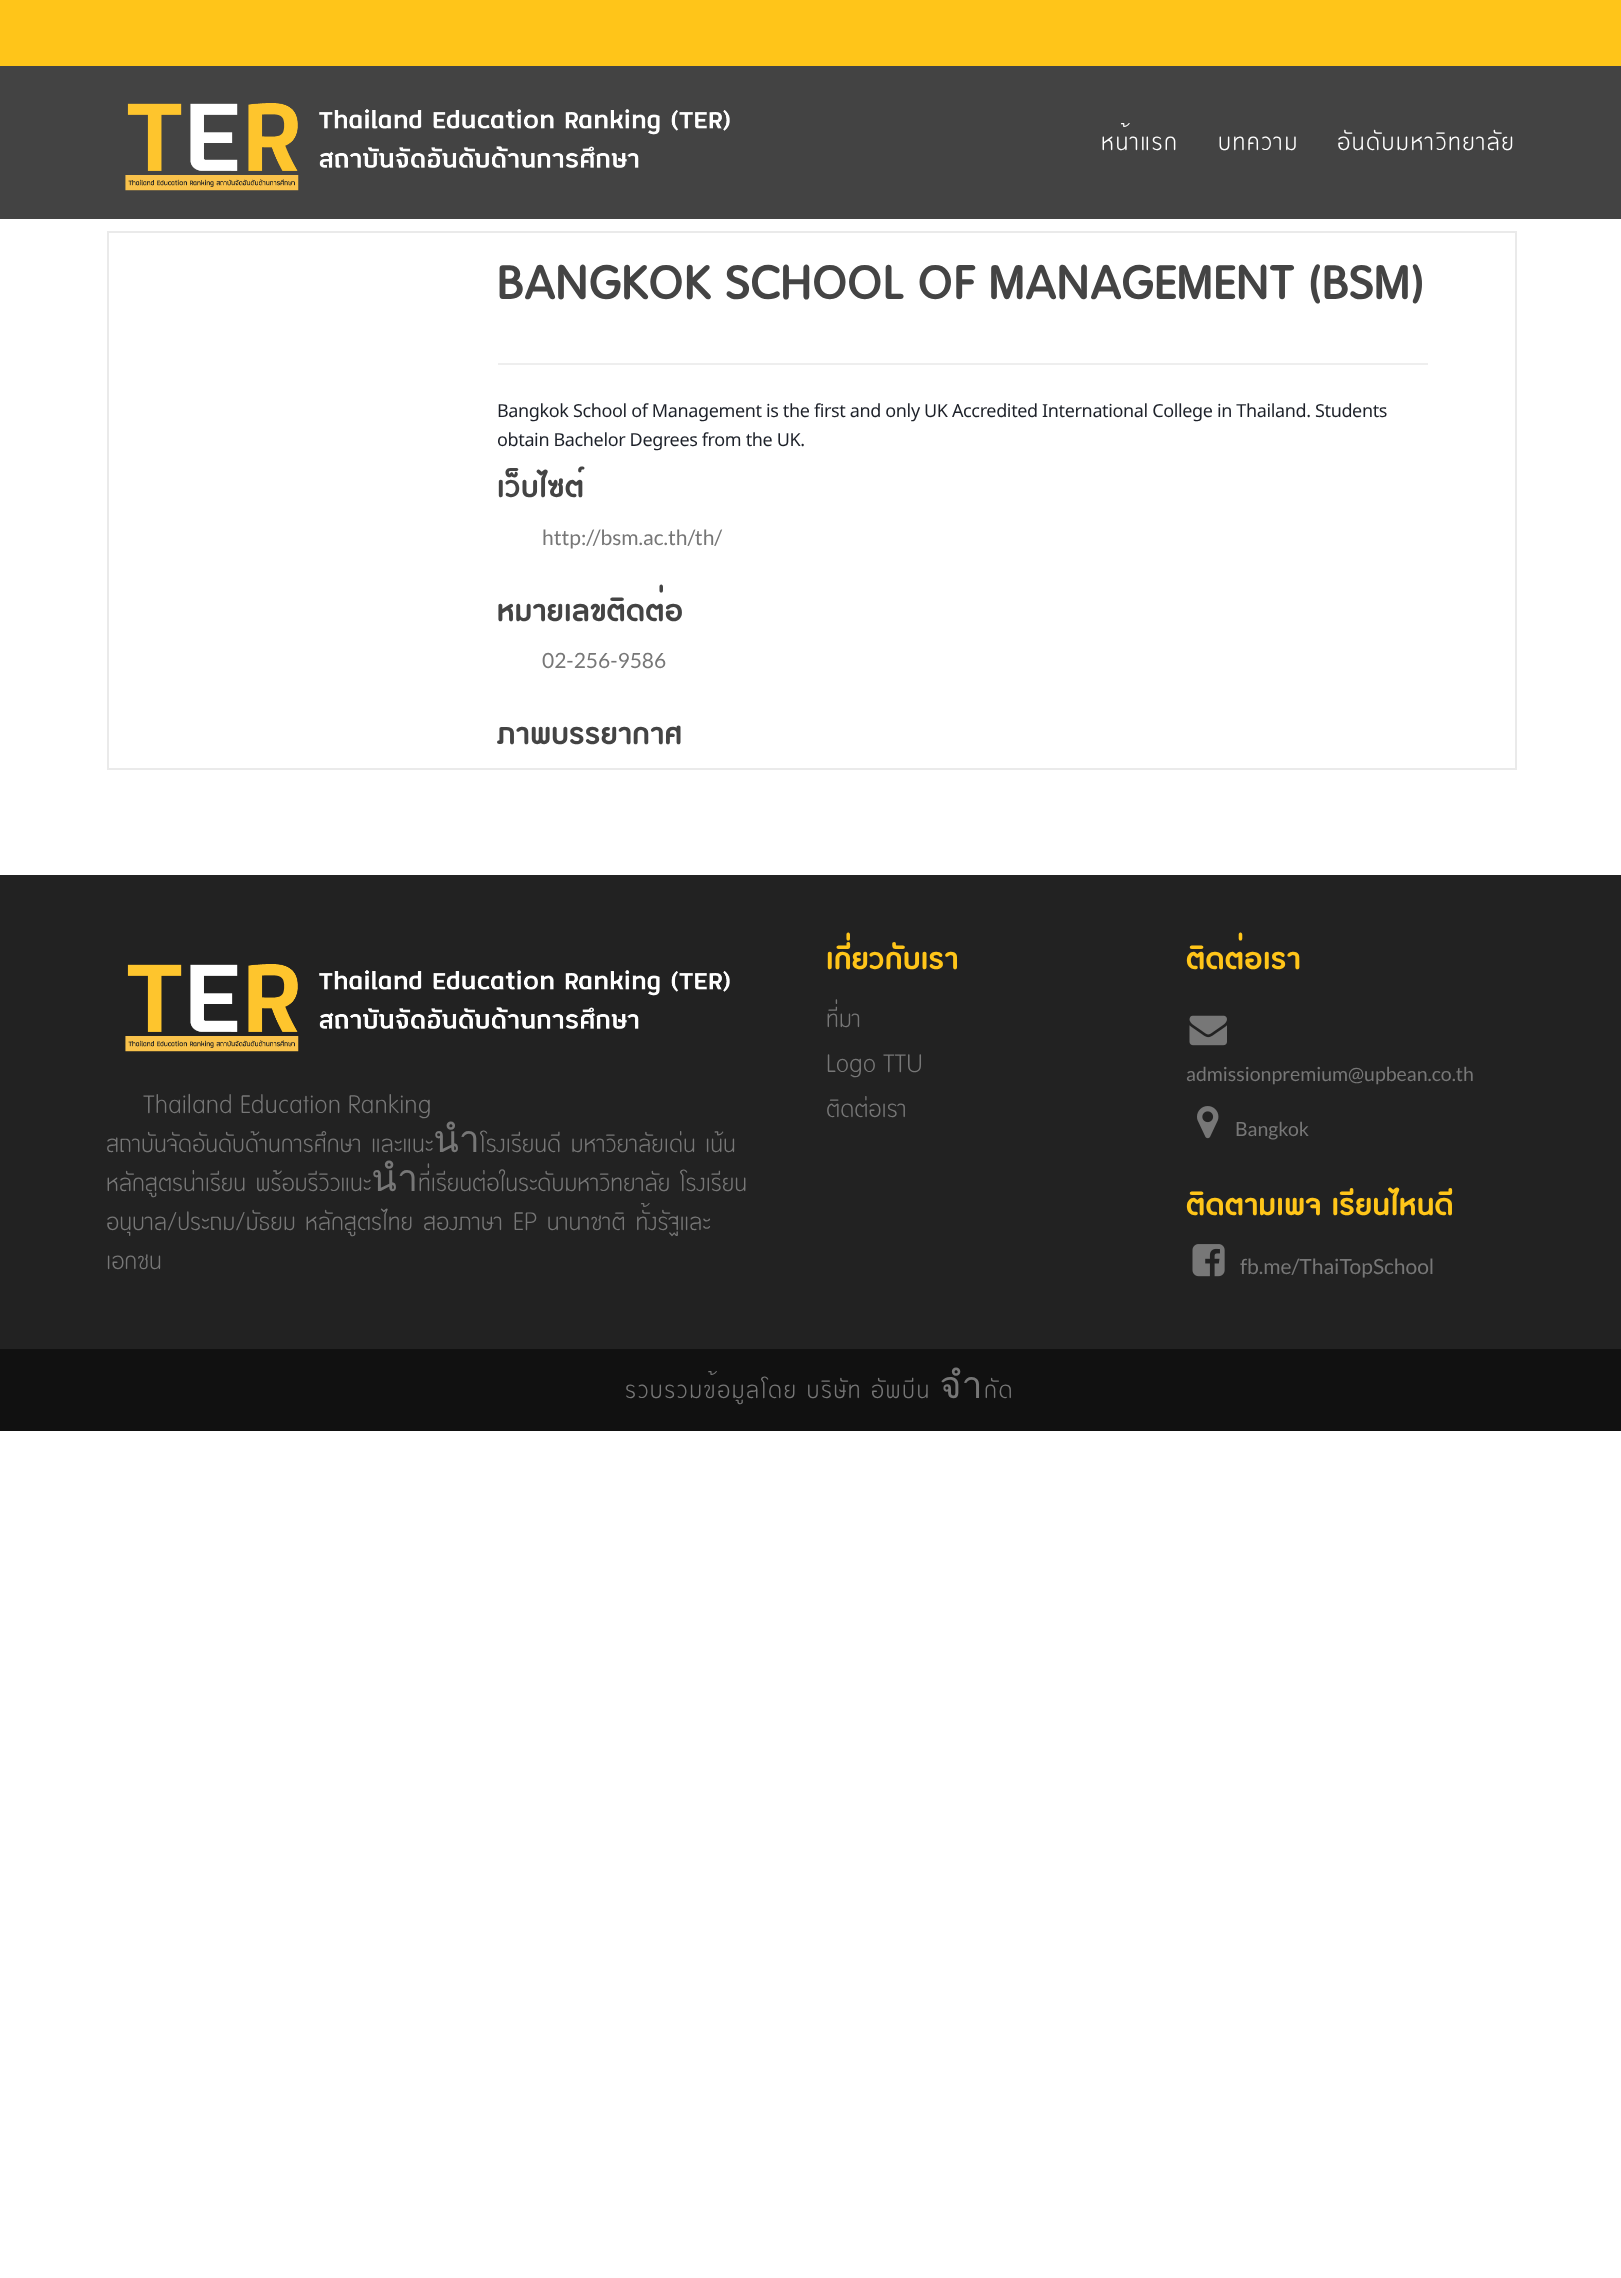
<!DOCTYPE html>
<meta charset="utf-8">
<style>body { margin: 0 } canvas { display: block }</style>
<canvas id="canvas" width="1621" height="2278"></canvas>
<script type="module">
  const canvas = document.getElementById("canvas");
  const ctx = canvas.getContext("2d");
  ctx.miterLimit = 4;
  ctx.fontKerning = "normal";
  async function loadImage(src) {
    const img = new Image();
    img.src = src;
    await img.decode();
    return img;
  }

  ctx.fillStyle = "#ffffff";
  ctx.fillRect(0, 0, 1621, 2278);
  ctx.fillStyle = "#ffc519";
  ctx.fillRect(0, 0, 1621, 66);
  ctx.fillStyle = "#434343";
  ctx.fillRect(0, 66, 1621, 153);
  ctx.drawImage(await loadImage("img1.png"), 125, 103, 605, 88);
  ctx.letterSpacing = "1.5px";
  ctx.font = "300 37.5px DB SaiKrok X";
  ctx.fillStyle = "#ffffff";
  ctx.fillText("หน้าแรก", 1101, 150);
  ctx.fillText("บทความ", 1218, 150);
  ctx.fillText("อันดับมหาวิทยาลัย", 1337, 150);
  ctx.strokeStyle = "#eaeaea";
  ctx.lineWidth = 2;
  ctx.strokeRect(108, 232, 1408, 537);
  ctx.letterSpacing = "0.9px";
  ctx.font = "bold 72px DB SaiKrok X";
  ctx.fillStyle = "#444444";
  ctx.fillText("BANGKOK SCHOOL OF MANAGEMENT (BSM)", 497, 299);
  ctx.fillStyle = "#eeeeee";
  ctx.fillRect(498, 363, 930, 2);
  ctx.letterSpacing = "-0.36px";
  ctx.font = "18px Noto Sans";
  ctx.fillStyle = "#1d2129";
  ctx.fillText("Bangkok School of Management is the first and only UK Accredited International College in Thailand. Students", 497, 417);
  ctx.fillText("obtain Bachelor Degrees from the UK.", 497, 446);
  ctx.letterSpacing = "0.9px";
  ctx.font = "bold 48px DB SaiKrok X";
  ctx.fillStyle = "#444444";
  ctx.fillText("เว็บไซต์", 497, 497);
  ctx.letterSpacing = "0px";
  ctx.font = "21px Lato";
  ctx.fillStyle = "#777777";
  ctx.fillText("http://bsm.ac.th/th/", 542, 545);
  ctx.letterSpacing = "0.9px";
  ctx.font = "bold 48px DB SaiKrok X";
  ctx.fillStyle = "#444444";
  ctx.fillText("หมายเลขติดต่อ", 497, 621);
  ctx.letterSpacing = "0px";
  ctx.font = "21px Lato";
  ctx.fillStyle = "#777777";
  ctx.fillText("02-256-9586", 542, 668);
  ctx.letterSpacing = "0.9px";
  ctx.font = "bold 48px DB SaiKrok X";
  ctx.fillStyle = "#444444";
  ctx.fillText("ภาพบรรยากาศ", 497, 744);
  ctx.fillStyle = "#222222";
  ctx.fillRect(0, 875, 1621, 474);
  ctx.drawImage(await loadImage("img2.png"), 125, 964, 605, 88);
  ctx.letterSpacing = "0px";
  ctx.font = "300 37.5px DB SaiKrok X";
  ctx.fillStyle = "#777777";
  ctx.fillText("Thailand Education Ranking", 143, 1113);
  ctx.fillText("สถาบันจัดอันดับด้านการศึกษา และแนะนำโรงเรียนดี มหาวิยาลัยเด่น เน้น", 106, 1152);
  ctx.fillText("หลักสูตรน่าเรียน พร้อมรีวิวแนะนำที่เรียนต่อในระดับมหาวิทยาลัย โรงเรียน", 106, 1191);
  ctx.fillText("อนุบาล/ประถม/มัธยม", 106, 1230);
  ctx.wordSpacing = "0.5px";
  ctx.fillText("หลักสูตรไทย สองภาษา EP นานาชาติ ทั้งรัฐและ", 305, 1230);
  ctx.wordSpacing = "0px";
  ctx.fillText("เอกชน", 106, 1269);
  ctx.letterSpacing = "0.9px";
  ctx.font = "bold 48px DB SaiKrok X";
  ctx.fillStyle = "#ffc519";
  ctx.fillText("เกี่ยวกับเรา", 826, 969);
  ctx.letterSpacing = "0px";
  ctx.font = "300 37.5px DB SaiKrok X";
  ctx.fillStyle = "#777777";
  ctx.fillText("ที่มา", 826, 1027);
  ctx.fillText("Logo TTU", 826, 1072);
  ctx.fillText("ติดต่อเรา", 826, 1117);
  ctx.letterSpacing = "0.9px";
  ctx.font = "bold 48px DB SaiKrok X";
  ctx.fillStyle = "#ffc519";
  ctx.fillText("ติดต่อเรา", 1186, 969);
  ctx.drawImage(await loadImage("img3.png"), 1189, 1015, 38, 31);
  ctx.letterSpacing = "0px";
  ctx.font = "19.5px Lato";
  ctx.fillStyle = "#777777";
  ctx.fillText("admissionpremium@upbean.co.th", 1186, 1081);
  ctx.drawImage(await loadImage("img4.png"), 1197, 1106, 22, 33);
  ctx.fillText("Bangkok", 1235, 1136);
  ctx.letterSpacing = "0.9px";
  ctx.wordSpacing = "-3px";
  ctx.font = "bold 48px DB SaiKrok X";
  ctx.fillStyle = "#ffc519";
  ctx.fillText("ติดตามเพจ เรียนไหนดี", 1186, 1215);
  ctx.drawImage(await loadImage("img5.png"), 1192, 1244, 33, 33);
  ctx.letterSpacing = "0px";
  ctx.wordSpacing = "0px";
  ctx.font = "21px Lato";
  ctx.fillStyle = "#777777";
  ctx.fillText("fb.me/ThaiTopSchool", 1240, 1274);
  ctx.fillStyle = "#111111";
  ctx.fillRect(0, 1349, 1621, 82);
  ctx.letterSpacing = "1.5px";
  ctx.wordSpacing = "-2px";
  ctx.font = "300 37.5px DB SaiKrok X";
  ctx.fillStyle = "#777777";
  ctx.fillText("รวบรวมข้อมูลโดย บริษัท อัพบีน จำกัด", 625, 1398);
</script>
